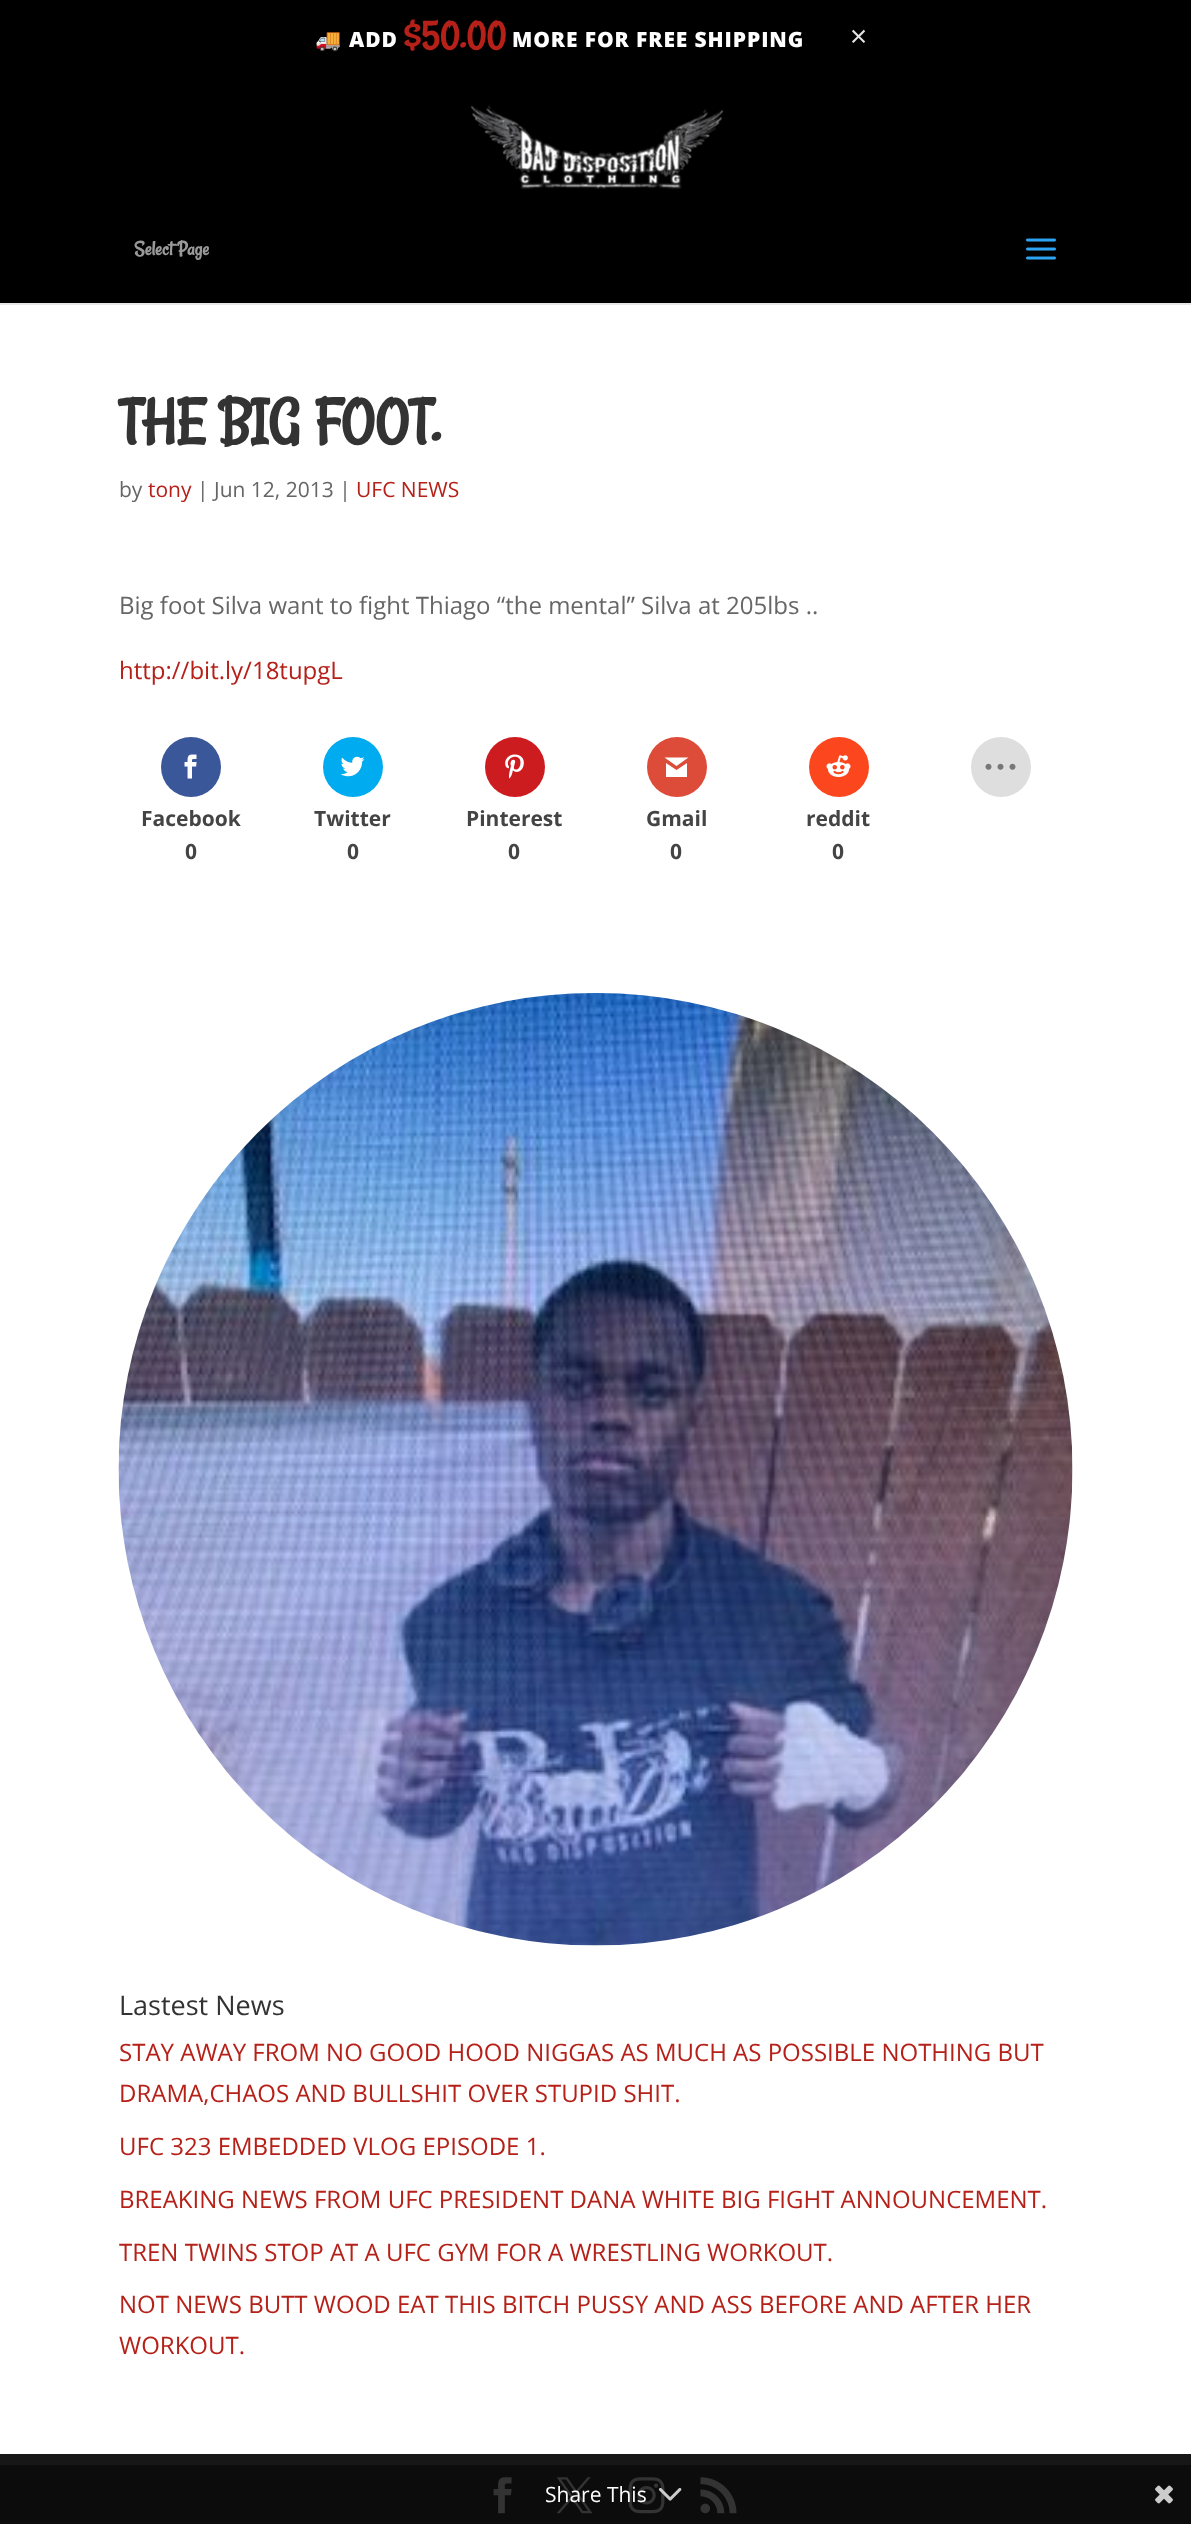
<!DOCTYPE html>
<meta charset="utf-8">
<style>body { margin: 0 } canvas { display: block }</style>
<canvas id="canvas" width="1191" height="2524"></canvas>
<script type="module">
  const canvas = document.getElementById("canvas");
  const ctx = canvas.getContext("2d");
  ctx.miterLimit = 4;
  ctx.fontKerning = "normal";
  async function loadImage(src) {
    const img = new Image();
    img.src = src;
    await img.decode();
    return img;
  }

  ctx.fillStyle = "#ffffff";
  ctx.fillRect(0, 0, 1191, 2524);
  ctx.fillStyle = "#000000";
  ctx.fillRect(0, 0, 1191, 303);
  ctx.letterSpacing = "0.9px";
  ctx.font = "bold 21px Noto Color Emoji";
  ctx.fillStyle = "#ffffff";
  ctx.fillText("🚚", 315, 47);
  ctx.font = "800 21px Open Sans";
  ctx.fillText("ADD", 349, 47);
  ctx.font = "bold 39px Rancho";
  ctx.fillStyle = "#b52119";
  ctx.fillText("$50.00", 404, 47);
  ctx.font = "800 21px Open Sans";
  ctx.fillStyle = "#ffffff";
  ctx.fillText("MORE FOR FREE SHIPPING", 512, 47);
  ctx.letterSpacing = "0px";
  ctx.font = "30px Open Sans";
  ctx.fillStyle = "#e6e6e6";
  ctx.fillText("×", 850, 47);
  ctx.fillRect(0, 303, 1191, 2);
  ctx.drawImage(await loadImage("img1.png"), 470, 105, 254, 85);
  ctx.font = "bold 21px Rancho";
  ctx.fillStyle = "#999999";
  ctx.fillText("Select Page", 134, 255);
  ctx.drawImage(await loadImage("img2.png"), 1026, 238, 30, 22);
  ctx.font = "bold 63px Rancho";
  ctx.fillStyle = "#333333";
  ctx.fillText("THE BIG FOOT.", 119, 440);
  ctx.font = "21px Open Sans";
  ctx.fillStyle = "#666666";
  ctx.fillText("by", 119, 497);
  ctx.fillStyle = "#b52119";
  ctx.fillText("tony", 148, 497);
  ctx.fillStyle = "#666666";
  ctx.fillText("| Jun 12, 2013 |", 197, 497);
  ctx.fillStyle = "#b52119";
  ctx.fillText("UFC NEWS", 356, 497);
  ctx.font = "24px Open Sans";
  ctx.fillStyle = "#666666";
  ctx.fillText("Big foot Silva want to fight Thiago “the mental” Silva at 205lbs ..", 119, 614);
  ctx.fillStyle = "#b52119";
  ctx.fillText("http://bit.ly/18tupgL", 119, 679);
  ctx.fillStyle = "#dedede";
  ctx.beginPath();
  ctx.arc(1001, 767, 30, 0, Math.PI * 2);
  ctx.fill();
  ctx.drawImage(await loadImage("img3.png"), 985, 763, 31, 7);
  ctx.fillStyle = "#3a579a";
  ctx.beginPath();
  ctx.arc(191, 767, 30, 0, Math.PI * 2);
  ctx.fill();
  ctx.drawImage(await loadImage("img4.png"), 184, 754, 13, 25);
  ctx.font = "bold 21px Open Sans";
  ctx.fillStyle = "#444444";
  ctx.fillText("Facebook", 141, 826);
  ctx.fillText("0", 185, 859);
  ctx.fillStyle = "#00abf0";
  ctx.beginPath();
  ctx.arc(353, 767, 30, 0, Math.PI * 2);
  ctx.fill();
  ctx.drawImage(await loadImage("img5.png"), 340, 756, 25, 21);
  ctx.fillStyle = "#444444";
  ctx.fillText("Twitter", 314, 826);
  ctx.fillText("0", 347, 859);
  ctx.fillStyle = "#cd1c1f";
  ctx.beginPath();
  ctx.arc(515, 767, 30, 0, Math.PI * 2);
  ctx.fill();
  ctx.drawImage(await loadImage("img6.png"), 505, 754, 19, 25);
  ctx.fillStyle = "#444444";
  ctx.fillText("Pinterest", 466, 826);
  ctx.fillText("0", 508, 859);
  ctx.fillStyle = "#dd4b39";
  ctx.beginPath();
  ctx.arc(677, 767, 30, 0, Math.PI * 2);
  ctx.fill();
  ctx.fillStyle = "#ffffff";
  ctx.beginPath();
  ctx.moveTo(688.5, 757.5);
  ctx.lineTo(664.5, 757.5);
  ctx.lineTo(676.5, 766);
  ctx.closePath();
  ctx.moveTo(676.5, 770);
  ctx.lineTo(666, 763);
  ctx.lineTo(666, 777);
  ctx.lineTo(687, 777);
  ctx.lineTo(687, 763);
  ctx.closePath();
  ctx.fill();
  ctx.fillStyle = "#444444";
  ctx.fillText("Gmail", 646, 826);
  ctx.fillText("0", 670, 859);
  ctx.fillStyle = "#fc461e";
  ctx.beginPath();
  ctx.arc(839, 767, 30, 0, Math.PI * 2);
  ctx.fill();
  ctx.drawImage(await loadImage("img7.png"), 826, 755, 25, 22);
  ctx.fillStyle = "#444444";
  ctx.fillText("reddit", 806, 826);
  ctx.fillText("0", 832, 859);
  ctx.drawImage(await loadImage("img8.png"), 118, 993, 955, 953);
  ctx.font = "27px Open Sans";
  ctx.fillStyle = "#333333";
  ctx.fillText("Lastest News", 119, 2015);
  ctx.font = "24px Open Sans";
  ctx.fillStyle = "#b52119";
  ctx.fillText("STAY AWAY FROM NO GOOD HOOD NIGGAS AS MUCH AS POSSIBLE NOTHING BUT", 119, 2061);
  ctx.fillText("DRAMA,CHAOS AND BULLSHIT OVER STUPID SHIT.", 119, 2102);
  ctx.fillText("UFC 323 EMBEDDED VLOG EPISODE 1.", 119, 2155);
  ctx.fillText("BREAKING NEWS FROM UFC PRESIDENT DANA WHITE BIG FIGHT ANNOUNCEMENT.", 119, 2208);
  ctx.fillText("TREN TWINS STOP AT A UFC GYM FOR A WRESTLING WORKOUT.", 119, 2261);
  ctx.fillText("NOT NEWS BUTT WOOD EAT THIS BITCH PUSSY AND ASS BEFORE AND AFTER HER", 119, 2313);
  ctx.fillText("WORKOUT.", 119, 2354);
  ctx.fillStyle = "#171717";
  ctx.fillRect(0, 2454, 1191, 11);
  ctx.fillStyle = "#0c0c0c";
  ctx.fillRect(0, 2465, 1191, 59);
  ctx.drawImage(await loadImage("img9.png"), 493, 2477, 19, 37);
  ctx.drawImage(await loadImage("img10.png"), 556, 2477, 37, 37);
  ctx.drawImage(await loadImage("img11.png"), 628, 2477, 37, 37);
  ctx.drawImage(await loadImage("img12.png"), 700, 2477, 37, 37);
  ctx.font = "21px Open Sans";
  ctx.fillStyle = "#ffffff";
  ctx.fillText("Share This", 545, 2502);
  ctx.drawImage(await loadImage("img13.png"), 658, 2488, 24, 13);
  ctx.drawImage(await loadImage("img14.png"), 1155, 2485, 18, 19);
</script>
